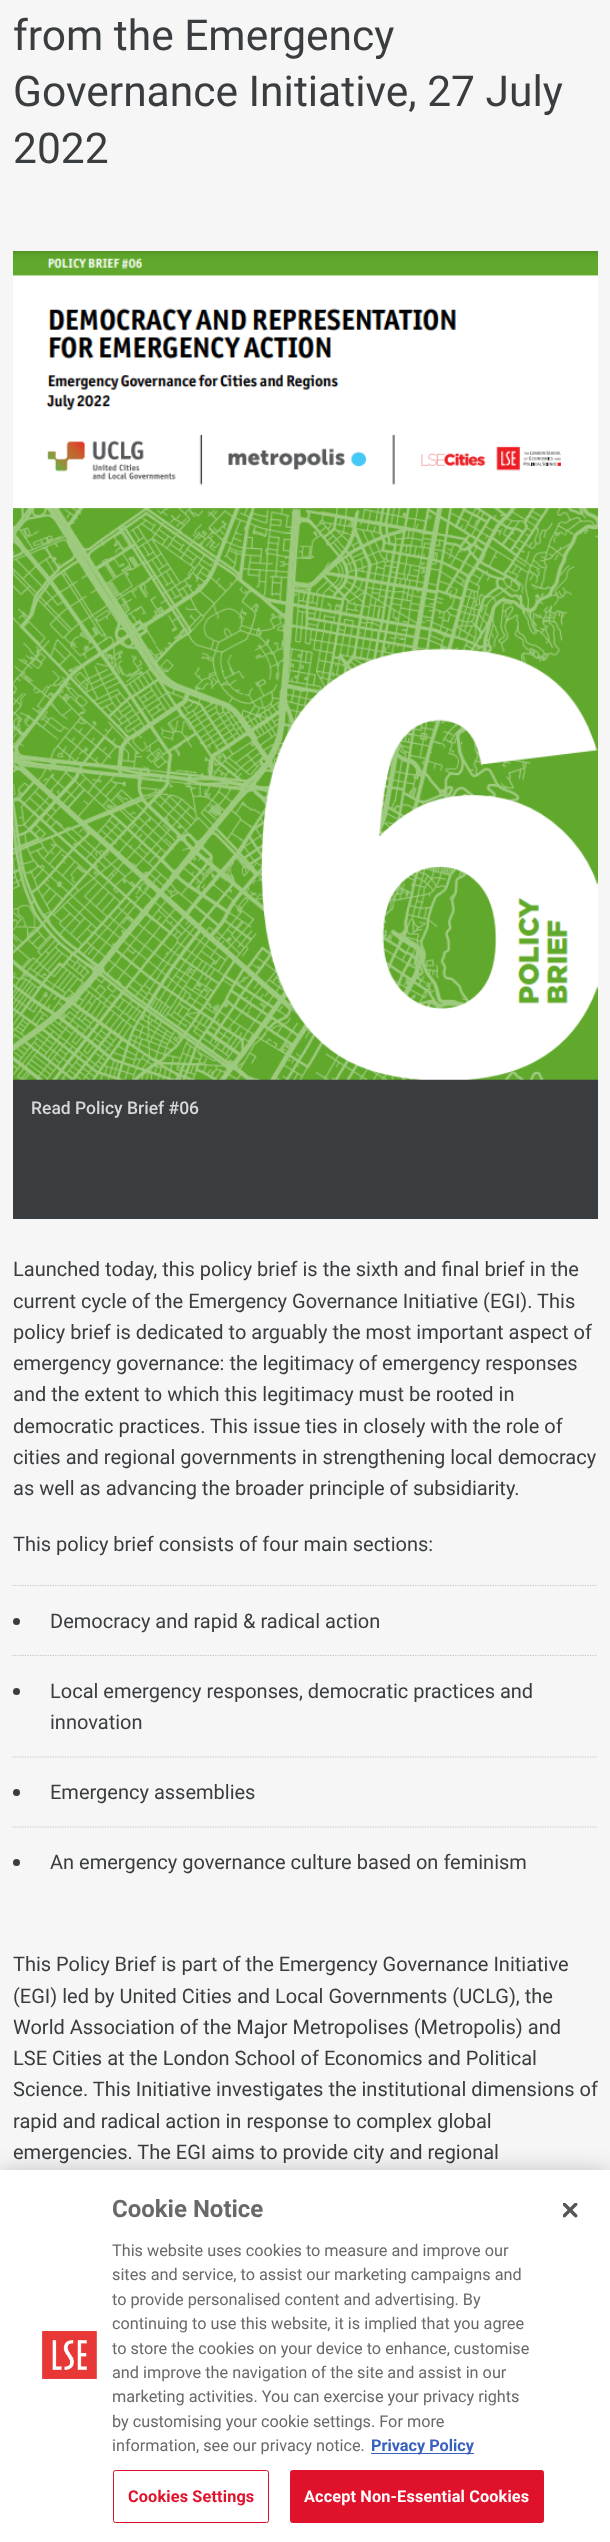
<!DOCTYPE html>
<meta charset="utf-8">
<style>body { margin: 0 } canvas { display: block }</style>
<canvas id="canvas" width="610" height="2542"></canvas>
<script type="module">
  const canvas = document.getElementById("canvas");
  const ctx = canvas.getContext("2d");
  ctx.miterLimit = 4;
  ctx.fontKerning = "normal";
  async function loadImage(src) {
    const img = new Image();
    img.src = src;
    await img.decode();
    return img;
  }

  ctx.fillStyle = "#f6f6f6";
  ctx.fillRect(0, 0, 610, 2542);
  ctx.font = "42.5px Roboto";
  ctx.fillStyle = "#3a3d3f";
  ctx.fillText("from the Emergency", 13, 50);
  ctx.fillText("Governance Initiative, 27 July", 13, 106);
  ctx.fillText("2022", 13, 163);
  ctx.fillRect(13, 1079, 585, 140);
  ctx.drawImage(await loadImage("img1.png"), 13, 251, 585, 829);
  ctx.font = "500 17.5px Roboto";
  ctx.fillStyle = "#d8d8d9";
  ctx.fillText("Read Policy Brief #06", 31, 1114);
  ctx.font = "20px Roboto";
  ctx.fillStyle = "#3a3d3f";
  ctx.fillText("Launched today, this policy brief is the sixth and final brief in the", 13, 1276);
  ctx.fillText("current cycle of the Emergency Governance Initiative (EGI). This", 13, 1308);
  ctx.fillText("policy brief is dedicated to arguably the most important aspect of", 13, 1339);
  ctx.fillText("emergency governance: the legitimacy of emergency responses", 13, 1370);
  ctx.fillText("and the extent to which this legitimacy must be rooted in", 13, 1401);
  ctx.fillText("democratic practices. This issue ties in closely with the role of", 13, 1433);
  ctx.fillText("cities and regional governments in strengthening local democracy", 13, 1464);
  ctx.fillText("as well as advancing the broader principle of subsidiarity.", 13, 1495);
  ctx.fillText("This policy brief consists of four main sections:", 13, 1551);
  ctx.beginPath();
  ctx.moveTo(12.5, 1585.5);
  ctx.lineTo(597.5, 1585.5);
  ctx.strokeStyle = "#c4c4c4";
  ctx.lineWidth = 1.2;
  ctx.setLineDash([1.25, 1.25]);
  ctx.stroke();
  ctx.beginPath();
  ctx.arc(16.5, 1621.5, 3.5, 0, Math.PI * 2);
  ctx.fill();
  ctx.fillText("Democracy and rapid & radical action", 50, 1628);
  ctx.beginPath();
  ctx.moveTo(12.5, 1655.5);
  ctx.lineTo(597.5, 1655.5);
  ctx.stroke();
  ctx.beginPath();
  ctx.arc(16.5, 1691.5, 3.5, 0, Math.PI * 2);
  ctx.fill();
  ctx.fillText("Local emergency responses, democratic practices and", 50, 1698);
  ctx.fillText("innovation", 50, 1729);
  ctx.beginPath();
  ctx.moveTo(12.5, 1757);
  ctx.lineTo(597.5, 1757);
  ctx.stroke();
  ctx.beginPath();
  ctx.arc(16.5, 1792.5, 3.5, 0, Math.PI * 2);
  ctx.fill();
  ctx.fillText("Emergency assemblies", 50, 1799);
  ctx.beginPath();
  ctx.moveTo(12.5, 1827);
  ctx.lineTo(597.5, 1827);
  ctx.stroke();
  ctx.beginPath();
  ctx.arc(16.5, 1862.5, 3.5, 0, Math.PI * 2);
  ctx.fill();
  ctx.fillText("An emergency governance culture based on feminism", 50, 1869);
  ctx.fillText("This Policy Brief is part of the Emergency Governance Initiative", 13, 1971);
  ctx.fillText("(EGI) led by United Cities and Local Governments (UCLG), the", 13, 2003);
  ctx.fillText("World Association of the Major Metropolises (Metropolis) and", 13, 2034);
  ctx.fillText("LSE Cities at the London School of Economics and Political", 13, 2065);
  ctx.fillText("Science. This Initiative investigates the institutional dimensions of", 13, 2096);
  ctx.fillText("rapid and radical action in response to complex global", 13, 2128);
  ctx.fillText("emergencies. The EGI aims to provide city and regional", 13, 2159);
  ctx.fillStyle = "rgba(0, 0, 0, 0.2)";
  ctx.filter = "blur(11px)";
  ctx.beginPath();
  ctx.rect(0, 2170, 610, 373);
  ctx.fill();
  ctx.filter = "none";
  ctx.fillStyle = "#ffffff";
  ctx.fillRect(0, 2170, 610, 372);
  ctx.drawImage(await loadImage("img2.png"), 42, 2331, 55, 48);
  ctx.font = "bold 24px Roboto";
  ctx.fillStyle = "#696969";
  ctx.fillText("Cookie Notice", 112, 2217);
  ctx.font = "16.25px Roboto";
  ctx.fillText("This website uses cookies to measure and improve our", 112, 2256);
  ctx.fillText("sites and service, to assist our marketing campaigns and", 112, 2280);
  ctx.fillText("to provide personalised content and advertising. By", 112, 2305);
  ctx.fillText("continuing to use this website, it is implied that you agree", 112, 2329);
  ctx.fillText("to store the cookies on your device to enhance, customise", 112, 2354);
  ctx.fillText("and improve the navigation of the site and assist in our", 112, 2378);
  ctx.fillText("marketing activities. You can exercise your privacy rights", 112, 2402);
  ctx.fillText("by customising your cookie settings. For more", 112, 2427);
  ctx.fillText("information, see our privacy notice.", 112, 2451);
  ctx.fillStyle = "#3860be";
  ctx.fillRect(371, 2453, 103, 1);
  ctx.font = "bold 16.25px Roboto";
  ctx.fillText("Privacy Policy", 371, 2451);
  ctx.beginPath();
  ctx.roundRect(113.5, 2470.5, 155, 52, 2);
  ctx.strokeStyle = "#e0112b";
  ctx.lineWidth = 1;
  ctx.setLineDash([]);
  ctx.stroke();
  ctx.letterSpacing = "0.15px";
  ctx.fillStyle = "#e0112b";
  ctx.fillText("Cookies Settings", 128, 2502);
  ctx.beginPath();
  ctx.roundRect(290.5, 2470.5, 253, 52, 2);
  ctx.fill();
  ctx.stroke();
  ctx.fillStyle = "#ffffff";
  ctx.fillText("Accept Non-Essential Cookies", 304, 2502);
  ctx.drawImage(await loadImage("img3.png"), 563, 2203, 15, 15);
</script>
